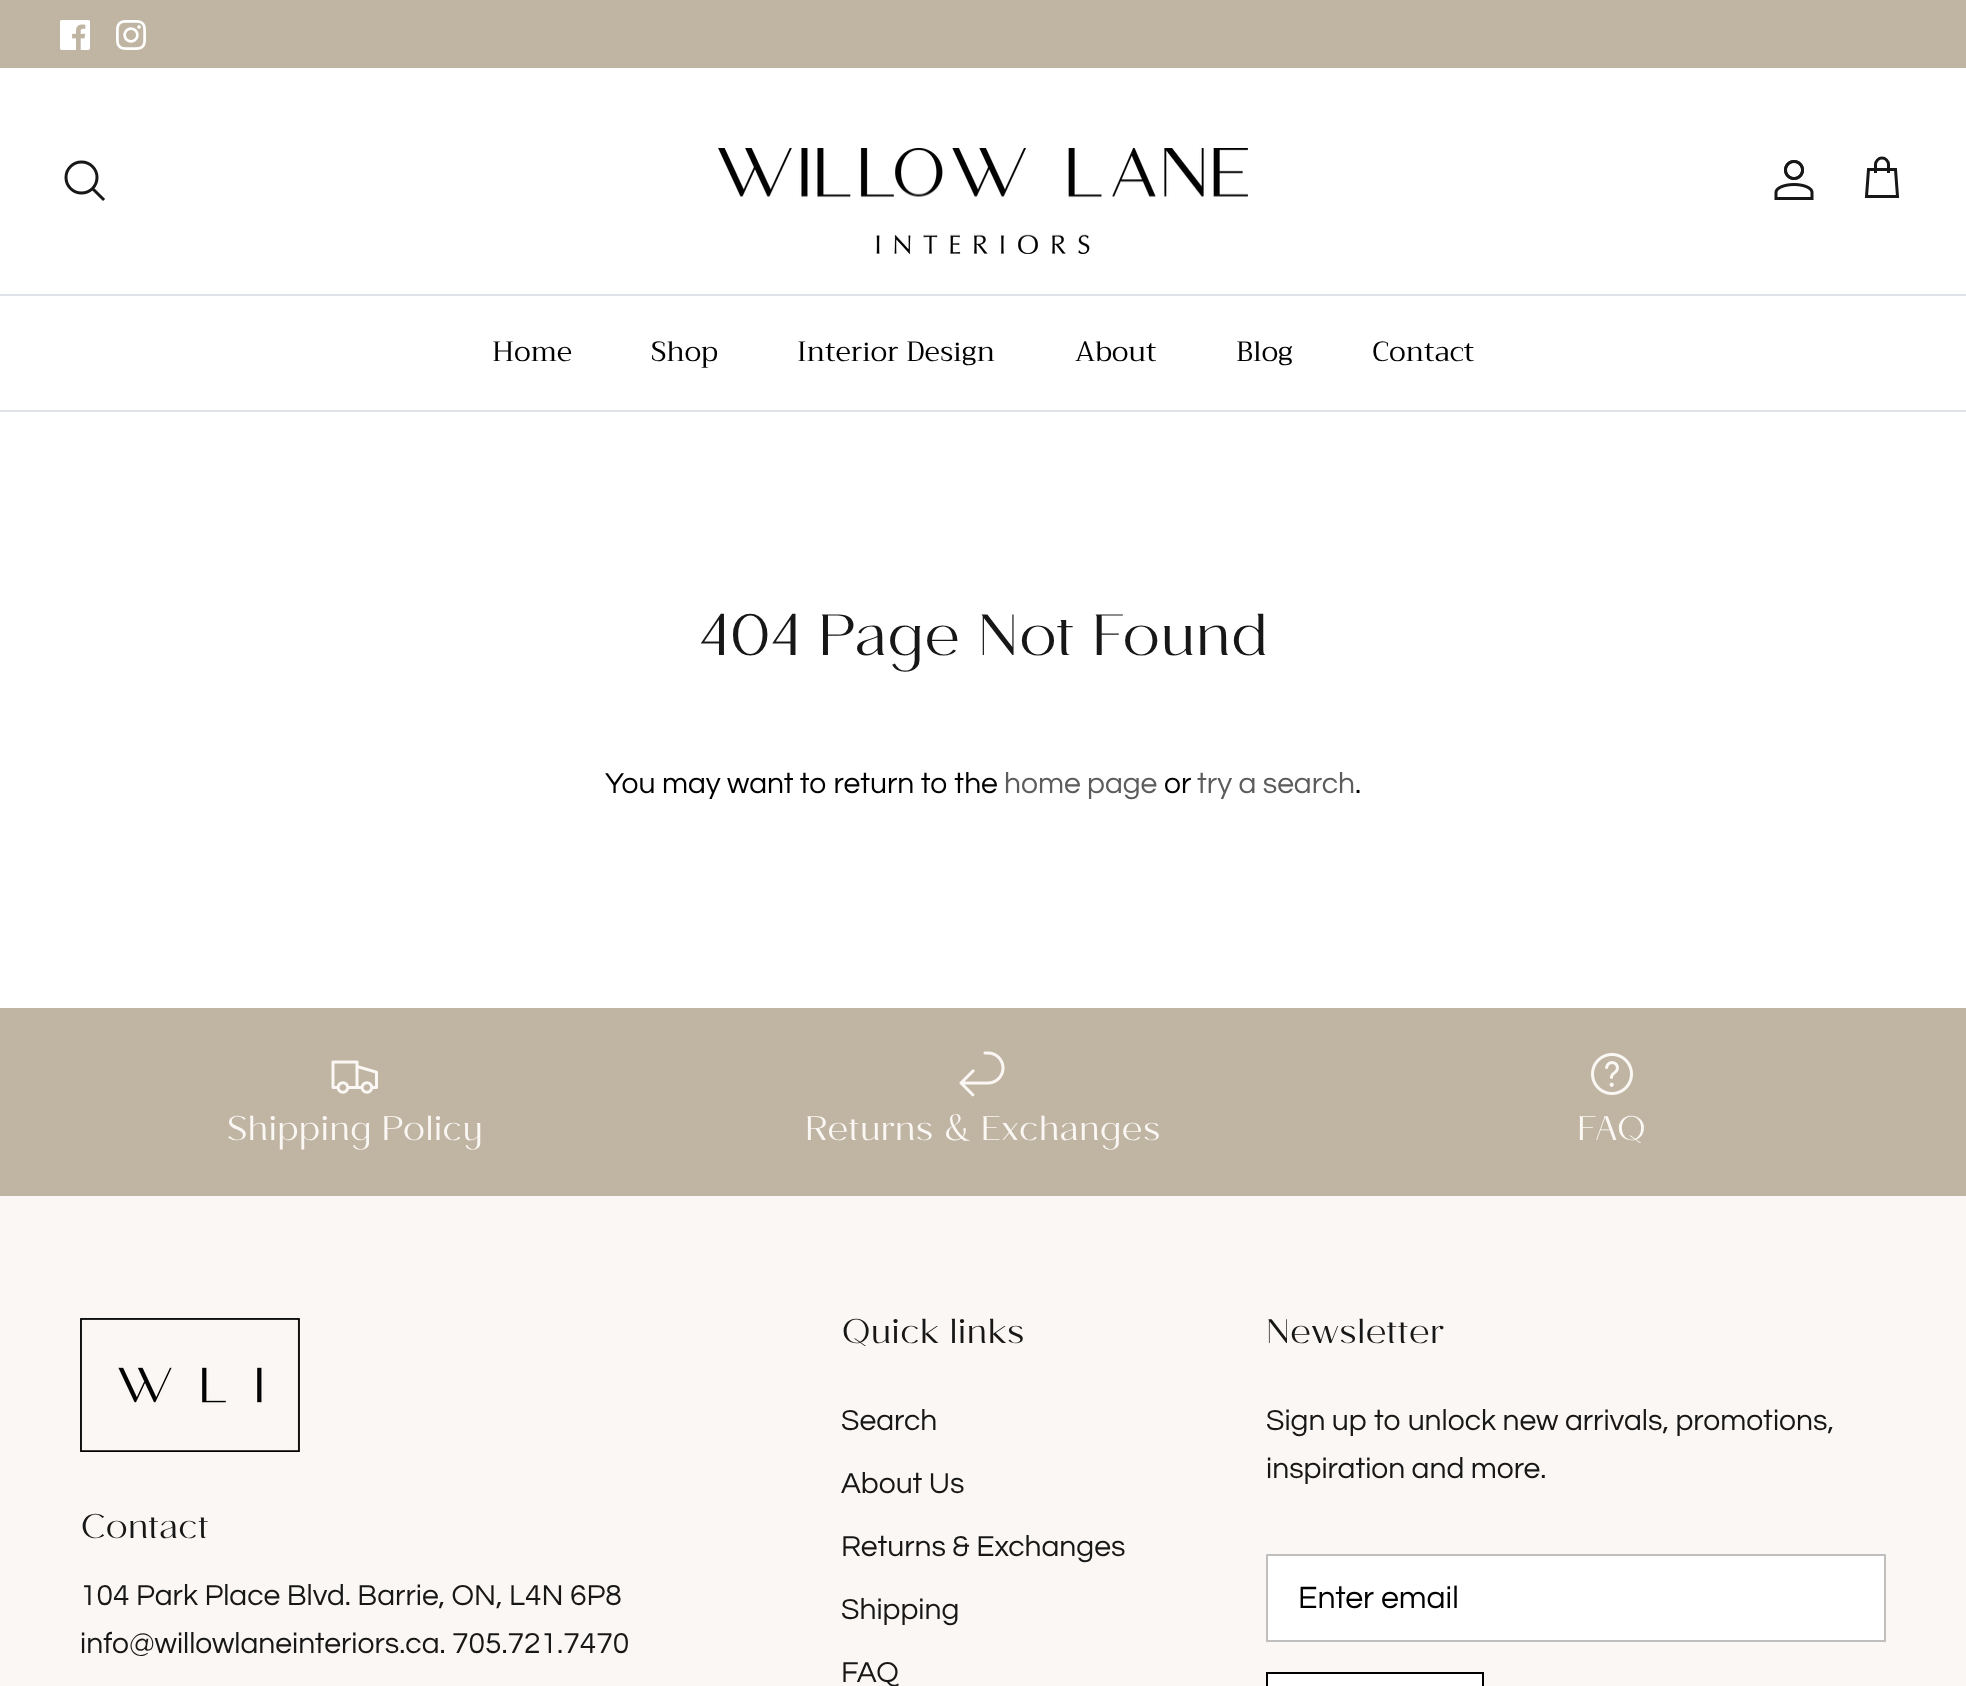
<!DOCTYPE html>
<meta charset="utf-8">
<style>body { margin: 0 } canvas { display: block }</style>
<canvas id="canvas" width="1966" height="1686"></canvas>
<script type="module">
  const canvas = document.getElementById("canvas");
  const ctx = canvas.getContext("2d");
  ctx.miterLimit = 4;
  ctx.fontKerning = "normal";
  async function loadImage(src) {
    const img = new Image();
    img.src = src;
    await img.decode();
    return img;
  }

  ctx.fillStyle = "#ffffff";
  ctx.fillRect(0, 0, 1966, 1686);
  ctx.fillStyle = "#c0b5a3";
  ctx.fillRect(0, 0, 1966, 68);
  ctx.drawImage(await loadImage("img1.png"), 60, 20, 30, 30);
  ctx.drawImage(await loadImage("img2.png"), 116, 20, 30, 30);
  ctx.fillStyle = "#dfe3e8";
  ctx.fillRect(0, 294, 1966, 2);
  ctx.beginPath();
  ctx.arc(81.5, 177.5, 15.5, 0, Math.PI * 2);
  ctx.strokeStyle = "#171717";
  ctx.lineWidth = 3;
  ctx.stroke();
  ctx.beginPath();
  ctx.moveTo(94, 190);
  ctx.lineTo(103, 199);
  ctx.lineCap = "square";
  ctx.stroke();
  ctx.drawImage(await loadImage("img3.png"), 718, 148, 530, 106);
  ctx.drawImage(await loadImage("img4.png"), 1774, 160, 40, 40);
  ctx.beginPath();
  ctx.moveTo(1888.5, 173);
  ctx.lineTo(1888.5, 164.5);
  ctx.bezierCurveTo(1888.5, 161, 1885.5, 158, 1882, 158);
  ctx.bezierCurveTo(1878.5, 158, 1875.5, 161, 1875.5, 164.5);
  ctx.lineTo(1875.5, 173);
  ctx.moveTo(1868.5, 169.5);
  ctx.lineTo(1895.5, 169.5);
  ctx.lineTo(1897.5, 196.5);
  ctx.lineTo(1866.5, 196.5);
  ctx.closePath();
  ctx.lineCap = "butt";
  ctx.stroke();
  ctx.fillRect(0, 410, 1966, 2);
  ctx.font = "28px Trirong";
  ctx.fillStyle = "#000000";
  ctx.fillText("Home", 492, 361);
  ctx.fillText("Shop", 651, 361);
  ctx.fillText("Interior Design", 797, 361);
  ctx.fillText("About", 1075, 361);
  ctx.fillText("Blog", 1236, 361);
  ctx.fillText("Contact", 1372, 361);
  ctx.font = "300 58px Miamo";
  ctx.fillStyle = "#171717";
  ctx.fillText("404 Page Not Found", 697, 655);
  ctx.font = "30px Questrial";
  ctx.fillStyle = "#000000";
  ctx.fillText("You may want to return to the", 605, 793);
  ctx.fillStyle = "#5c5c5c";
  ctx.fillText("home page", 1004, 793);
  ctx.fillStyle = "#000000";
  ctx.fillText("or", 1164, 793);
  ctx.fillStyle = "#5c5c5c";
  ctx.fillText("try a search", 1197, 793);
  ctx.fillStyle = "#000000";
  ctx.fillText(".", 1355, 793);
  ctx.fillStyle = "#faf7f4";
  ctx.fillRect(0, 1196, 1966, 490);
  ctx.fillStyle = "#c0b5a3";
  ctx.fillRect(0, 1008, 1966, 188);
  ctx.drawImage(await loadImage("img5.png"), 331, 1060, 47, 34);
  ctx.font = "300 34px Miamo";
  ctx.fillStyle = "#faf7f4";
  ctx.fillText("Shipping Policy", 226, 1140);
  ctx.drawImage(await loadImage("img6.png"), 959, 1051, 46, 46);
  ctx.fillText("Returns & Exchanges", 805, 1140);
  ctx.drawImage(await loadImage("img7.png"), 1591, 1053, 42, 42);
  ctx.fillText("FAQ", 1577, 1140);
  ctx.drawImage(await loadImage("img8.png"), 80, 1318, 220, 134);
  ctx.fillStyle = "#171717";
  ctx.fillText("Contact", 80, 1538);
  ctx.font = "30px Questrial";
  ctx.fillText("104 Park Place Blvd. Barrie, ON, L4N 6P8", 80, 1605);
  ctx.fillText("info@willowlaneinteriors.ca. 705.721.7470", 80, 1653);
  ctx.font = "300 34px Miamo";
  ctx.fillText("Quick links", 841, 1343);
  ctx.font = "30px Questrial";
  ctx.fillText("Search", 841, 1430);
  ctx.fillText("About Us", 841, 1493);
  ctx.fillText("Returns & Exchanges", 841, 1556);
  ctx.fillText("Shipping", 841, 1619);
  ctx.fillText("FAQ", 841, 1682);
  ctx.font = "300 34px Miamo";
  ctx.fillText("Newsletter", 1266, 1343);
  ctx.font = "30px Questrial";
  ctx.fillText("Sign up to unlock new arrivals, promotions,", 1266, 1430);
  ctx.fillText("inspiration and more.", 1266, 1478);
  ctx.fillStyle = "#ffffff";
  ctx.beginPath();
  ctx.rect(1267, 1555, 618, 86);
  ctx.fill();
  ctx.strokeStyle = "#bfbfbf";
  ctx.lineWidth = 2;
  ctx.stroke();
  ctx.font = "32px Questrial";
  ctx.fillStyle = "#000000";
  ctx.fillText("Enter email", 1298, 1608);
  ctx.fillStyle = "#ffffff";
  ctx.beginPath();
  ctx.rect(1267, 1673, 216, 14);
  ctx.fill();
  ctx.strokeStyle = "#000000";
  ctx.stroke();
</script>
